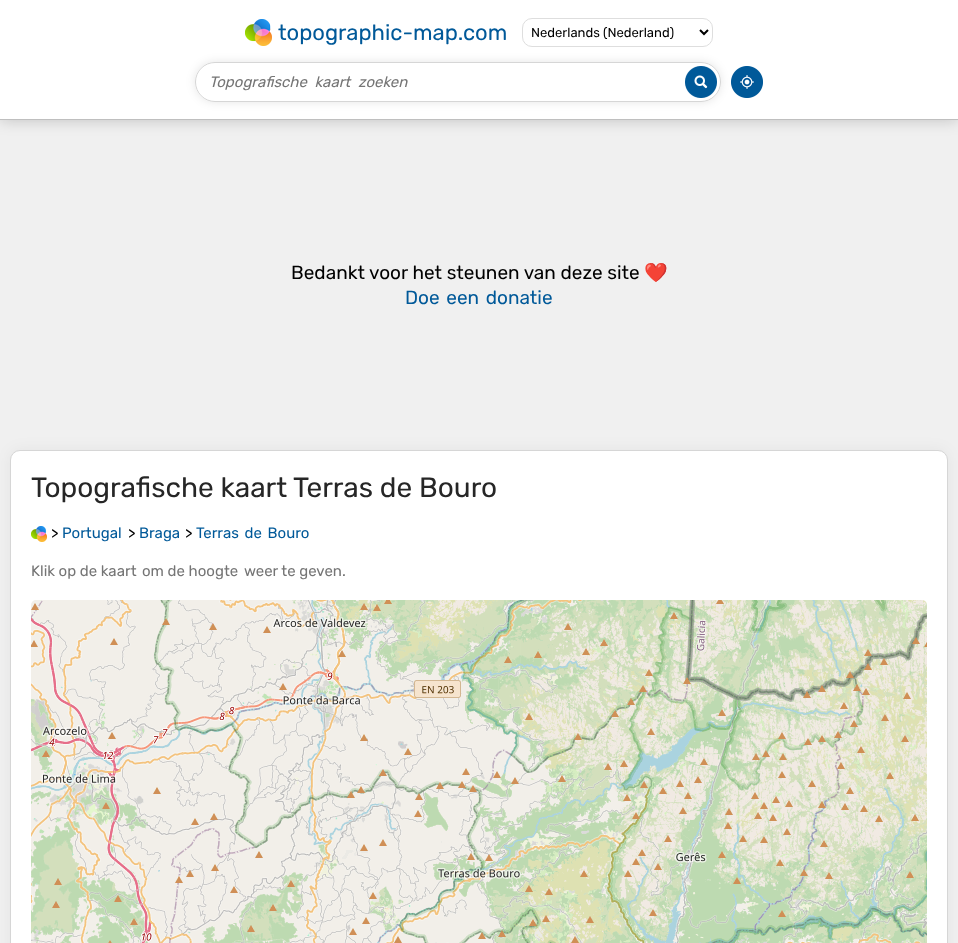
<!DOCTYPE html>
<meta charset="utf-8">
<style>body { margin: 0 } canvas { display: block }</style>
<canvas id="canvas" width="958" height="943"></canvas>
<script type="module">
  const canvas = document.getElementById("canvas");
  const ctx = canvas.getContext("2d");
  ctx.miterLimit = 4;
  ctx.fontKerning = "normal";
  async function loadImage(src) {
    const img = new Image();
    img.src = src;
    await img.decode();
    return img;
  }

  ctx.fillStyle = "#f0f0f0";
  ctx.fillRect(0, 0, 958, 943);
  ctx.fillStyle = "rgba(0, 0, 0, 0.2)";
  ctx.filter = "blur(7.5px)";
  ctx.beginPath();
  ctx.rect(0, 0, 958, 120);
  ctx.fill();
  ctx.filter = "none";
  ctx.fillStyle = "#ffffff";
  ctx.fillRect(0, 0, 958, 119);
  ctx.fillStyle = "#bfbfbf";
  ctx.fillRect(0, 119, 958, 1);
  ctx.drawImage(await loadImage("img1.png"), 245, 19, 27, 27);
  ctx.font = "22px Rubik";
  ctx.fillStyle = "#005999";
  ctx.fillText("topographic-map.com", 278, 40);
  ctx.beginPath();
  ctx.roundRect(522.5, 18.5, 190, 28, 9.5);
  ctx.strokeStyle = "#dedede";
  ctx.stroke();
  ctx.beginPath();
  ctx.moveTo(700, 30);
  ctx.lineTo(704, 34);
  ctx.lineTo(708, 30);
  ctx.strokeStyle = "#000000";
  ctx.lineWidth = 2;
  ctx.stroke();
  ctx.font = "13px Rubik";
  ctx.fillStyle = "#000000";
  ctx.fillText("Nederlands (Nederland)", 531, 37);
  ctx.save();
  ctx.beginPath();
  ctx.moveTo(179, 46);
  ctx.lineTo(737, 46);
  ctx.lineTo(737, 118);
  ctx.lineTo(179, 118);
  ctx.closePath();
  ctx.moveTo(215, 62);
  ctx.lineTo(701, 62);
  ctx.bezierCurveTo(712, 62, 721, 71, 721, 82);
  ctx.bezierCurveTo(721, 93, 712, 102, 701, 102);
  ctx.lineTo(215, 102);
  ctx.bezierCurveTo(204, 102, 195, 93, 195, 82);
  ctx.bezierCurveTo(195, 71, 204, 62, 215, 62);
  ctx.closePath();
  ctx.clip("evenodd");
  ctx.fillStyle = "rgba(0, 0, 0, 0.1)";
  ctx.filter = "blur(5px)";
  ctx.beginPath();
  ctx.roundRect(195, 62, 526, 40, 20);
  ctx.fill();
  ctx.filter = "none";
  ctx.restore();
  ctx.beginPath();
  ctx.roundRect(195.5, 62.5, 525, 39, 19.5);
  ctx.strokeStyle = "#d6d6d6";
  ctx.lineWidth = 1;
  ctx.stroke();
  ctx.wordSpacing = "4px";
  ctx.font = "italic 15px Rubik";
  ctx.fillStyle = "#757575";
  ctx.fillText("Topografische kaart zoeken", 209, 87);
  ctx.drawImage(await loadImage("img2.png"), 685, 66, 32, 32);
  ctx.drawImage(await loadImage("img3.png"), 731, 66, 32, 32);
  ctx.wordSpacing = "0px";
  ctx.font = "19px Rubik";
  ctx.fillStyle = "#000000";
  ctx.fillText("Bedankt voor het steunen van deze site", 291, 279);
  ctx.font = "19px Noto Color Emoji";
  ctx.fillText("❤️", 644, 279);
  ctx.wordSpacing = "2px";
  ctx.font = "19px Rubik";
  ctx.fillStyle = "#005999";
  ctx.fillText("Doe een donatie", 405, 304);
  ctx.fillStyle = "rgba(0, 0, 0, 0.05)";
  ctx.filter = "blur(7.5px)";
  ctx.beginPath();
  ctx.roundRect(10, 450, 938, 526, 10);
  ctx.fill();
  ctx.filter = "none";
  ctx.fillStyle = "#ffffff";
  ctx.beginPath();
  ctx.roundRect(10.5, 450.5, 937, 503, 9.5);
  ctx.fill();
  ctx.stroke();
  ctx.wordSpacing = "0px";
  ctx.font = "28px Rubik";
  ctx.fillStyle = "#262626";
  ctx.fillText("Topografische kaart", 31, 497);
  ctx.fillText("Terras de Bouro", 293, 497);
  ctx.drawImage(await loadImage("img4.png"), 31, 526, 16, 16);
  ctx.font = "15px Rubik";
  ctx.fillStyle = "#000000";
  ctx.fillText(">", 51, 538);
  ctx.fillStyle = "#005999";
  ctx.fillText("Portugal", 62, 538);
  ctx.fillStyle = "#000000";
  ctx.fillText(">", 128, 538);
  ctx.fillStyle = "#005999";
  ctx.fillText("Braga", 139, 538);
  ctx.fillStyle = "#000000";
  ctx.fillText(">", 185, 538);
  ctx.wordSpacing = "2px";
  ctx.fillStyle = "#005999";
  ctx.fillText("Terras de Bouro", 196, 538);
  ctx.wordSpacing = "0px";
  ctx.fillStyle = "#757575";
  ctx.fillText("Klik op de kaart", 31, 576);
  ctx.fillText("om de hoogte", 142, 576);
  ctx.fillText("weer te geven.", 244, 576);
  ctx.drawImage(await loadImage("img5.png"), 31, 600, 4, 171);
  ctx.drawImage(await loadImage("img6.png"), 35, 600, 256, 171);
  ctx.drawImage(await loadImage("img7.png"), 291, 600, 256, 171);
  ctx.drawImage(await loadImage("img8.png"), 547, 600, 256, 171);
  ctx.drawImage(await loadImage("img9.png"), 803, 600, 124, 171);
  ctx.drawImage(await loadImage("img10.png"), 31, 771, 4, 172);
  ctx.drawImage(await loadImage("img11.png"), 35, 771, 256, 172);
  ctx.drawImage(await loadImage("img12.png"), 291, 771, 256, 172);
  ctx.drawImage(await loadImage("img13.png"), 547, 771, 256, 172);
  ctx.drawImage(await loadImage("img14.png"), 803, 771, 124, 172);
</script>
